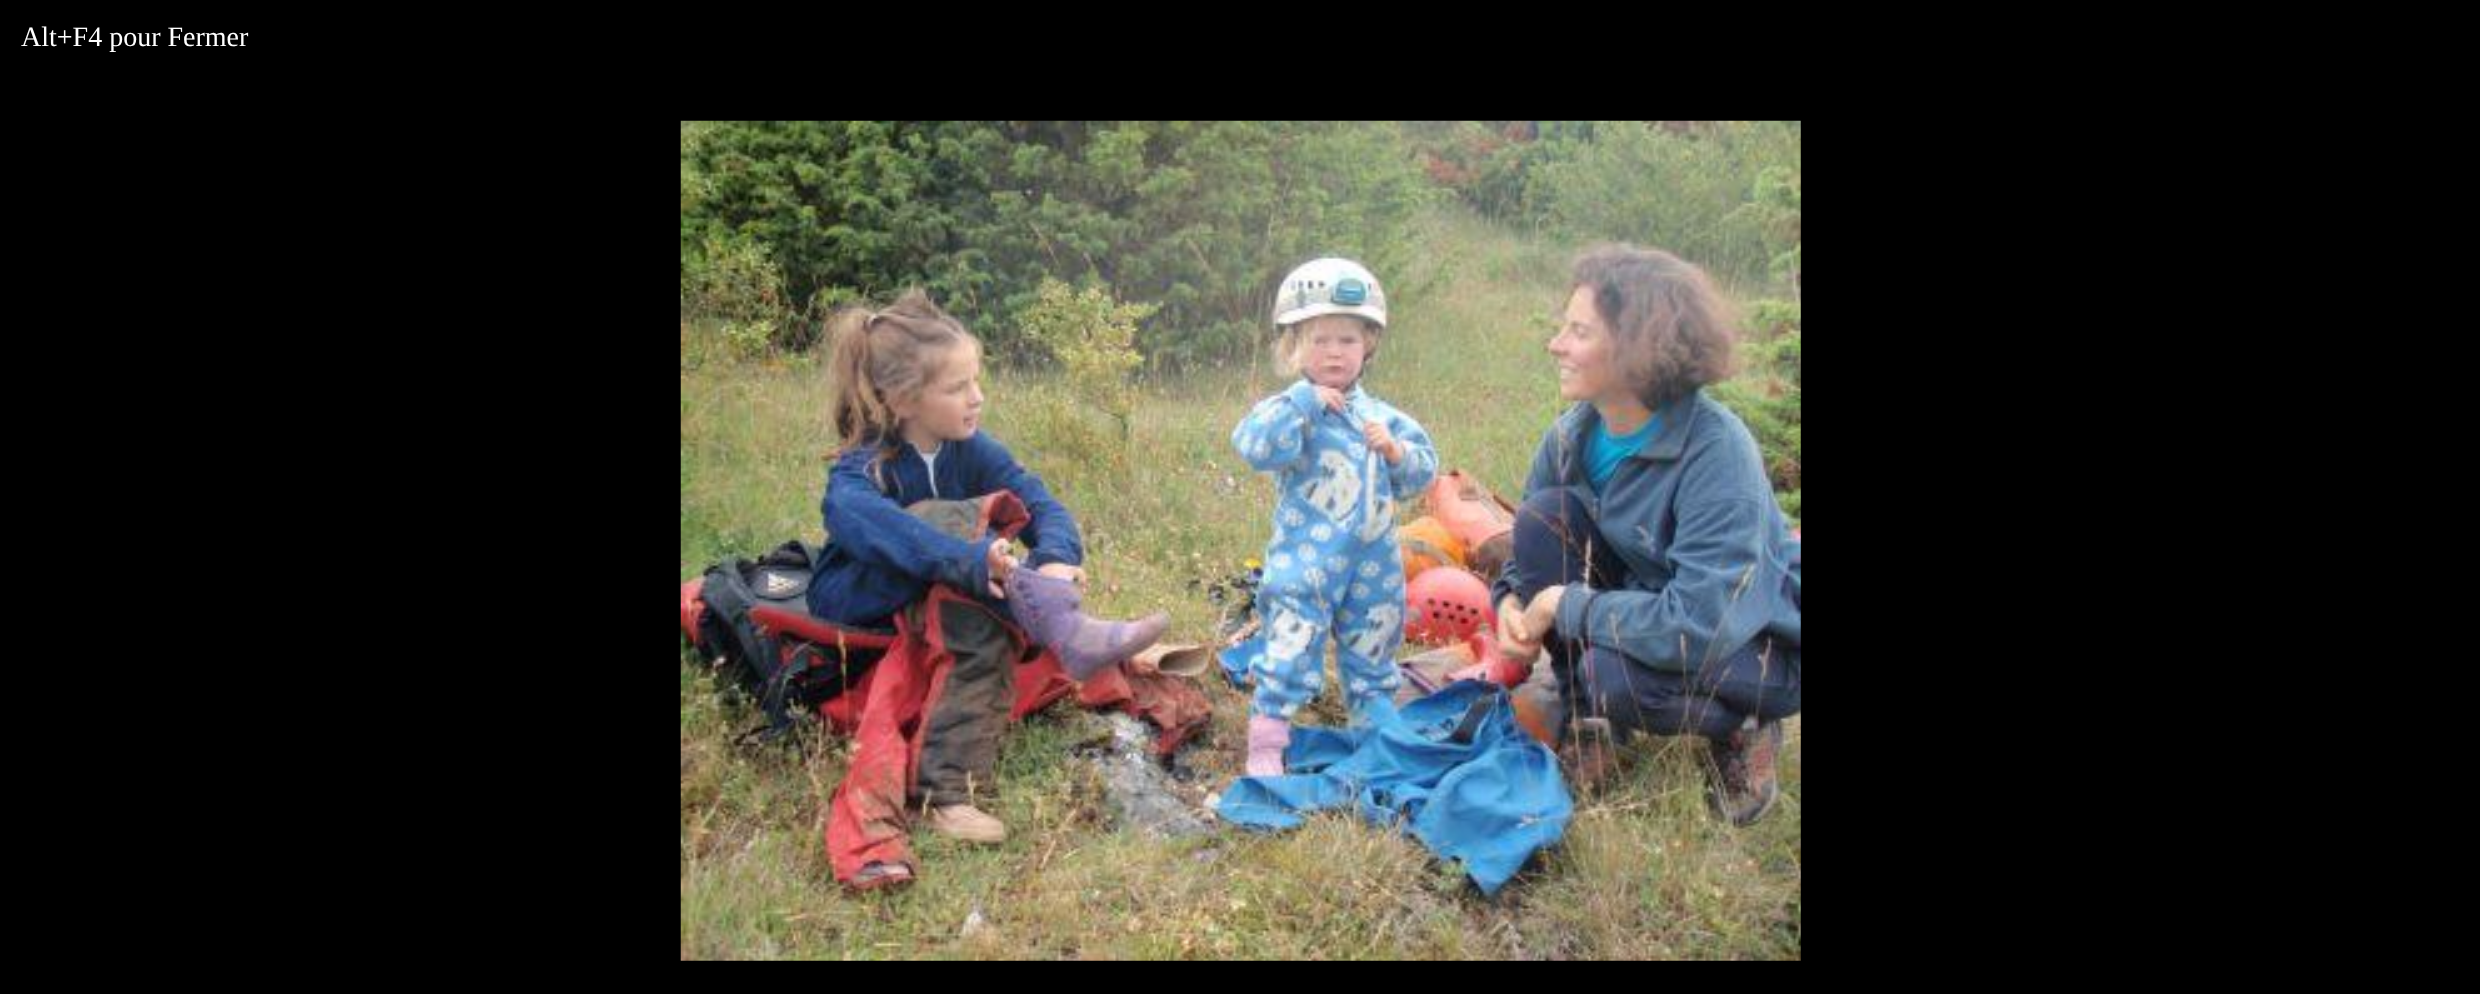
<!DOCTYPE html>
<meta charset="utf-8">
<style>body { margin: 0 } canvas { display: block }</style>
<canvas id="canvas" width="2480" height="994"></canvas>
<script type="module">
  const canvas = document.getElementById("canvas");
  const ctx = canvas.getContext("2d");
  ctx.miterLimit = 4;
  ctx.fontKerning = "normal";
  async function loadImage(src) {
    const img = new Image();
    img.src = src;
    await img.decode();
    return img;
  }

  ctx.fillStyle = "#000000";
  ctx.fillRect(0, 0, 2480, 994);
  ctx.font = "28px Liberation Serif";
  ctx.fillStyle = "#ffffff";
  ctx.fillText("Alt+F4 pour Fermer", 21, 46);
  ctx.drawImage(await loadImage("img1.png"), 680, 120, 1121, 841);
</script>
